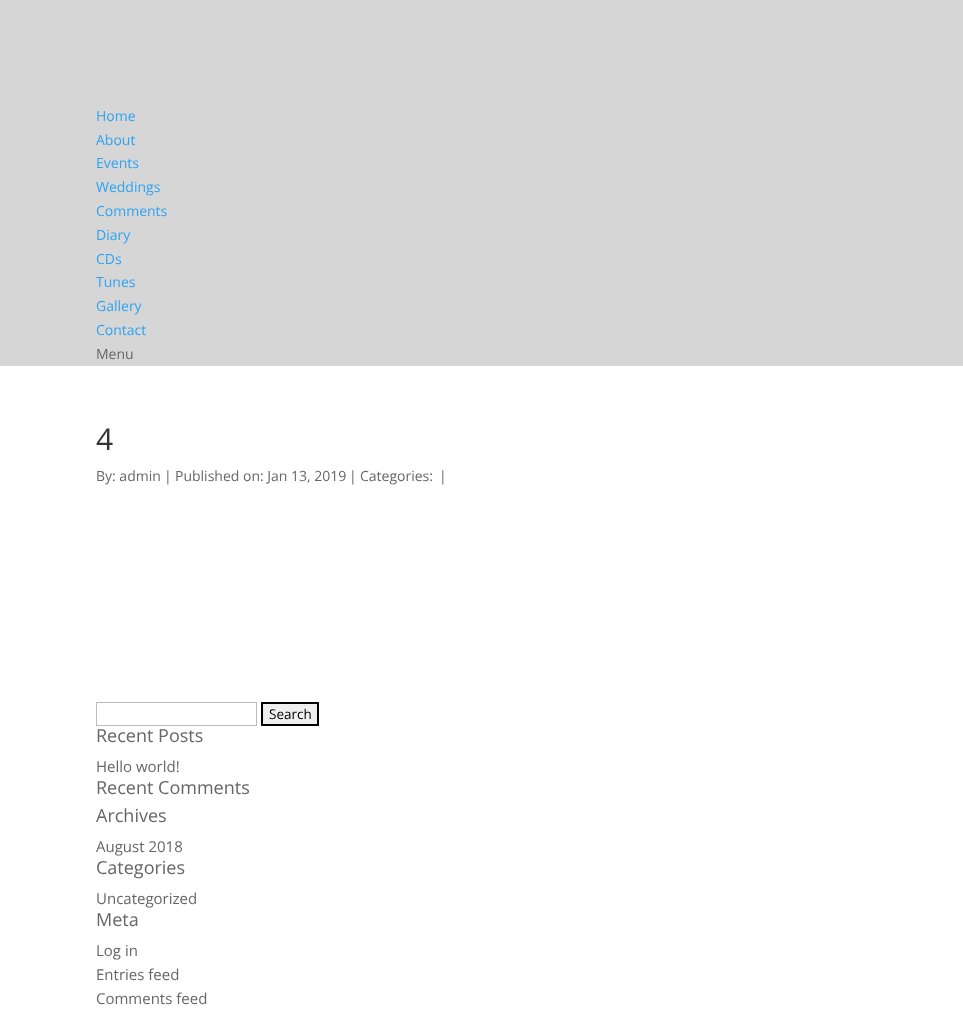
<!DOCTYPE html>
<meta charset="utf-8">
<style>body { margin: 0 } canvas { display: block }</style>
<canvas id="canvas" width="963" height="1019"></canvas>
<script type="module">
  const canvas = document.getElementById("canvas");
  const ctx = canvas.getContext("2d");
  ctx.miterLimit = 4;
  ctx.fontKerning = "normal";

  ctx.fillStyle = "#d6d6d6";
  ctx.fillRect(0, 0, 963, 1019);
  ctx.font = "14px Open Sans";
  ctx.fillStyle = "#2ea3f2";
  ctx.fillText("Home", 96, 121);
  ctx.fillText("About", 96, 145);
  ctx.fillText("Events", 96, 168);
  ctx.fillText("Weddings", 96, 192);
  ctx.fillText("Comments", 96, 216);
  ctx.fillText("Diary", 96, 240);
  ctx.fillText("CDs", 96, 264);
  ctx.fillText("Tunes", 96, 287);
  ctx.fillText("Gallery", 96, 311);
  ctx.fillText("Contact", 96, 335);
  ctx.fillStyle = "#666666";
  ctx.fillText("Menu", 96, 359);
  ctx.fillStyle = "#ffffff";
  ctx.fillRect(0, 366, 963, 653);
  ctx.font = "30px Open Sans";
  ctx.fillStyle = "#333333";
  ctx.fillText("4", 96, 450);
  ctx.font = "14px Open Sans";
  ctx.fillStyle = "#666666";
  ctx.fillText("By: admin", 96, 481);
  ctx.fillText("|", 164, 481);
  ctx.fillText("Published on: Jan 13, 2019", 175, 481);
  ctx.fillText("|", 349, 481);
  ctx.fillText("Categories:", 360, 481);
  ctx.fillText("|", 439, 481);
  ctx.strokeStyle = "#bbbbbb";
  ctx.strokeRect(96.5, 702.5, 160, 23);
  ctx.fillStyle = "#efefef";
  ctx.beginPath();
  ctx.rect(262, 703, 56, 22);
  ctx.fill();
  ctx.strokeStyle = "#000000";
  ctx.lineWidth = 2;
  ctx.stroke();
  ctx.font = "13.5px Open Sans";
  ctx.fillStyle = "#000000";
  ctx.fillText("Search", 269, 719);
  ctx.font = "18px Open Sans";
  ctx.fillStyle = "#666666";
  ctx.fillText("Recent Posts", 96, 742);
  ctx.font = "15px Open Sans";
  ctx.fillText("Hello world!", 96, 772);
  ctx.font = "18px Open Sans";
  ctx.fillText("Recent Comments", 96, 794);
  ctx.fillText("Archives", 96, 822);
  ctx.font = "15px Open Sans";
  ctx.fillText("August 2018", 96, 852);
  ctx.font = "18px Open Sans";
  ctx.fillText("Categories", 96, 874);
  ctx.font = "15px Open Sans";
  ctx.fillText("Uncategorized", 96, 904);
  ctx.font = "18px Open Sans";
  ctx.fillText("Meta", 96, 926);
  ctx.font = "15px Open Sans";
  ctx.fillText("Log in", 96, 956);
  ctx.fillText("Entries feed", 96, 980);
  ctx.fillText("Comments feed", 96, 1004);
</script>
